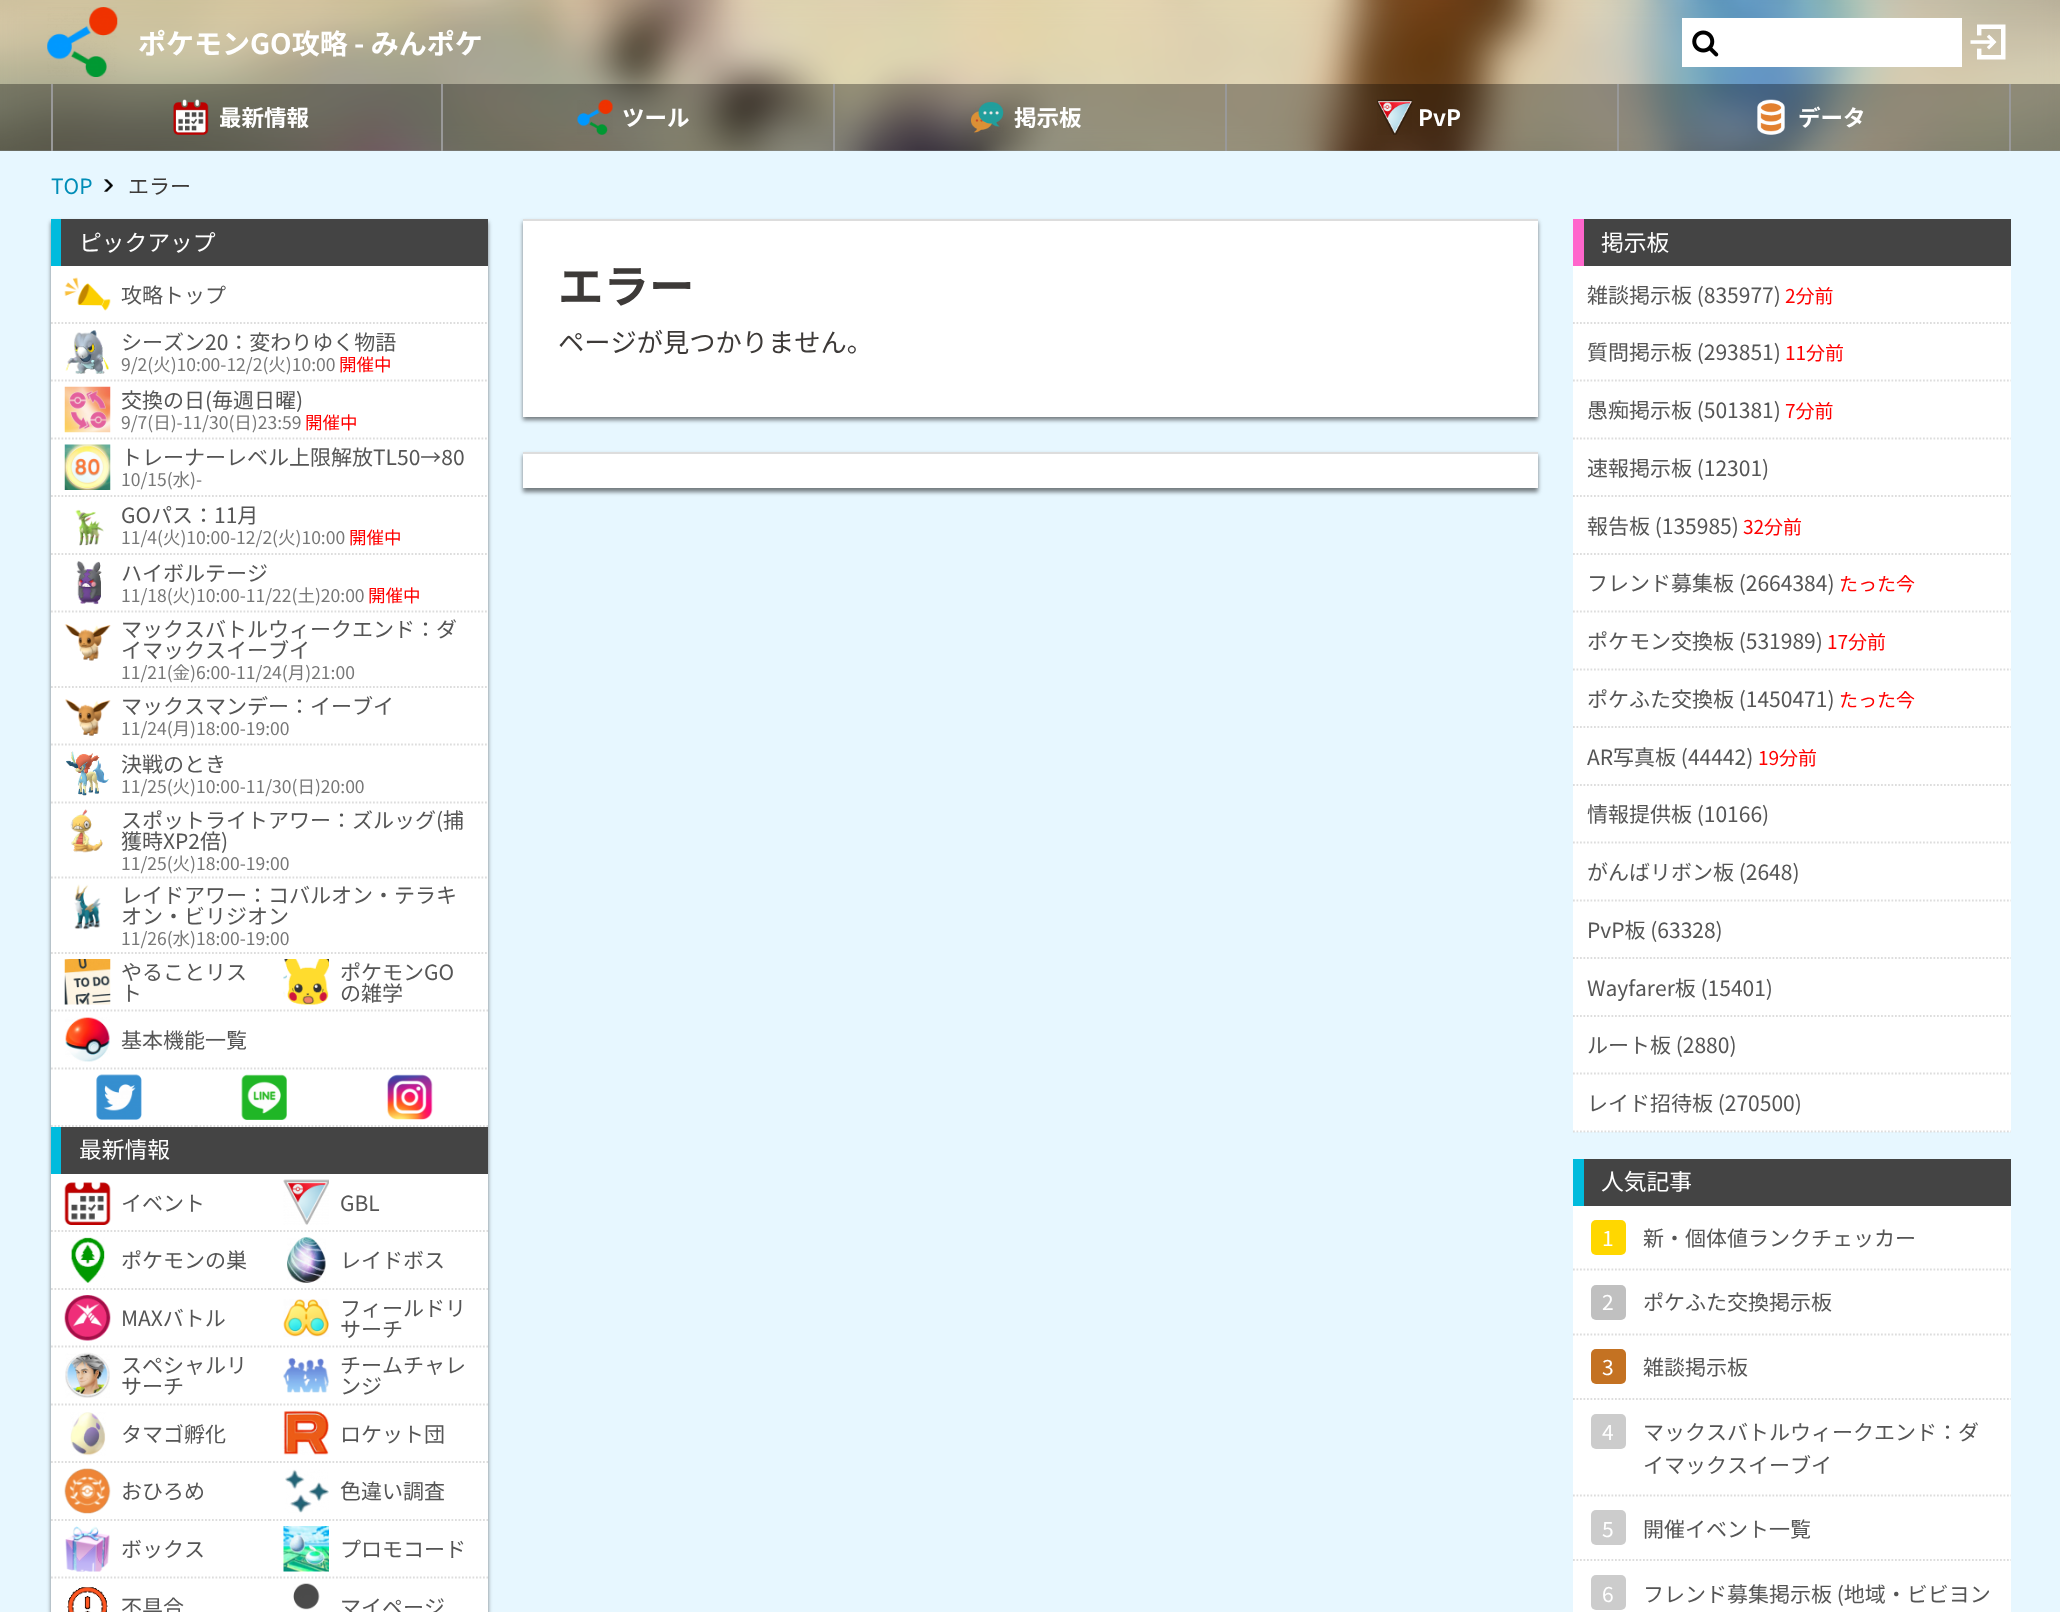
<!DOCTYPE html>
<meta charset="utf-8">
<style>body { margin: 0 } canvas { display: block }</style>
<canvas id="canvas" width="2060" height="1612"></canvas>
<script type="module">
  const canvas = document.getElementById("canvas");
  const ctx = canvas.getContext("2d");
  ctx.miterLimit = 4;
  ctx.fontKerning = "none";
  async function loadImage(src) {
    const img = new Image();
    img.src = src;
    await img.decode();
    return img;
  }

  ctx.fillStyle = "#e7f7ff";
  ctx.fillRect(0, 0, 2060, 1612);
  ctx.drawImage(await loadImage("img1.png"), 0, 0, 2060, 151);
  ctx.drawImage(await loadImage("img2.png"), 0, 0, 2060, 151);
  ctx.fillStyle = "rgba(0, 0, 0, 0.1)";
  ctx.fillRect(0, 0, 2060, 84);
  ctx.drawImage(await loadImage("img3.png"), 47, 7, 71, 70);
  ctx.font = "bold 28px Noto Sans JP";
  ctx.fillStyle = "#ffffff";
  ctx.fillText("ポケモンGO攻略 - みんポケ", 138, 54);
  ctx.fillRect(1682, 18, 280, 49);
  ctx.drawImage(await loadImage("img4.png"), 1692, 30, 27, 27);
  ctx.drawImage(await loadImage("img5.png"), 1970, 24, 36, 36);
  ctx.fillStyle = "rgba(0, 0, 0, 0.4)";
  ctx.fillRect(0, 84, 2060, 67);
  ctx.fillStyle = "#999999";
  ctx.fillRect(441, 84, 2, 67);
  ctx.fillRect(51, 84, 2, 67);
  ctx.drawImage(await loadImage("img6.png"), 173, 99, 36, 36);
  ctx.font = "bold 22.5px Noto Sans JP";
  ctx.fillStyle = "#ffffff";
  ctx.fillText("最新情報", 219, 126);
  ctx.fillStyle = "#999999";
  ctx.fillRect(833, 84, 2, 67);
  ctx.drawImage(await loadImage("img7.png"), 577, 99, 36, 36);
  ctx.fillStyle = "#ffffff";
  ctx.fillText("ツール", 622, 126);
  ctx.fillStyle = "#999999";
  ctx.fillRect(1225, 84, 2, 67);
  ctx.drawImage(await loadImage("img8.png"), 971, 102, 33, 31);
  ctx.fillStyle = "#ffffff";
  ctx.fillText("掲示板", 1014, 126);
  ctx.fillStyle = "#999999";
  ctx.fillRect(1617, 84, 2, 67);
  ctx.drawImage(await loadImage("img9.png"), 1377, 99, 36, 36);
  ctx.fillStyle = "#ffffff";
  ctx.fillText("PvP", 1418, 126);
  ctx.fillStyle = "#999999";
  ctx.fillRect(2009, 84, 2, 67);
  ctx.drawImage(await loadImage("img10.png"), 1757, 99, 28, 36);
  ctx.fillStyle = "#ffffff";
  ctx.fillText("データ", 1798, 126);
  ctx.font = "21px Noto Sans JP";
  ctx.fillStyle = "#008db7";
  ctx.fillText("TOP", 51, 194);
  ctx.drawImage(await loadImage("img11.png"), 104, 179, 9, 13);
  ctx.fillStyle = "#3d3a38";
  ctx.fillText("エラー", 128, 194);
  ctx.fillStyle = "rgba(0, 0, 0, 0.5)";
  ctx.filter = "blur(2px)";
  ctx.beginPath();
  ctx.rect(51, 222, 437, 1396);
  ctx.fill();
  ctx.filter = "none";
  ctx.fillStyle = "#ffffff";
  ctx.fillRect(51, 266, 437, 1346);
  ctx.fillStyle = "#444444";
  ctx.fillRect(61, 219, 427, 47);
  ctx.fillStyle = "#00bbdd";
  ctx.fillRect(51, 219, 10, 47);
  ctx.font = "22.75px Noto Sans JP";
  ctx.fillStyle = "#ffffff";
  ctx.fillText("ピックアップ", 79, 251);
  ctx.beginPath();
  ctx.moveTo(51, 323);
  ctx.lineTo(488, 323);
  ctx.strokeStyle = "#dddddd";
  ctx.lineWidth = 1.8;
  ctx.setLineDash([1.75, 1.75]);
  ctx.stroke();
  ctx.drawImage(await loadImage("img12.png"), 64, 277, 47, 34);
  ctx.font = "21px Noto Sans JP";
  ctx.fillStyle = "#555555";
  ctx.fillText("攻略トップ", 121, 303);
  ctx.beginPath();
  ctx.moveTo(51, 380.5);
  ctx.lineTo(488, 380.5);
  ctx.stroke();
  ctx.drawImage(await loadImage("img13.png"), 65, 330, 44, 44);
  ctx.fillText("シーズン20：変わりゆく物語", 121, 350);
  ctx.font = "17.5px Noto Sans JP";
  ctx.fillStyle = "#777777";
  ctx.fillText("9/2(火)10:00-12/2(火)10:00", 121, 371);
  ctx.fillStyle = "#ff0000";
  ctx.fillText("開催中", 339, 371);
  ctx.beginPath();
  ctx.moveTo(51, 438.5);
  ctx.lineTo(488, 438.5);
  ctx.stroke();
  ctx.drawImage(await loadImage("img14.png"), 64, 386, 47, 47);
  ctx.font = "21px Noto Sans JP";
  ctx.fillStyle = "#555555";
  ctx.fillText("交換の日(毎週日曜)", 121, 408);
  ctx.font = "17.5px Noto Sans JP";
  ctx.fillStyle = "#777777";
  ctx.fillText("9/7(日)-11/30(日)23:59", 121, 429);
  ctx.fillStyle = "#ff0000";
  ctx.fillText("開催中", 305, 429);
  ctx.beginPath();
  ctx.moveTo(51, 496);
  ctx.lineTo(488, 496);
  ctx.stroke();
  ctx.drawImage(await loadImage("img15.png"), 64, 444, 47, 46);
  ctx.font = "21px Noto Sans JP";
  ctx.fillStyle = "#555555";
  ctx.fillText("トレーナーレベル上限解放TL50→80", 121, 465);
  ctx.font = "17.5px Noto Sans JP";
  ctx.fillStyle = "#777777";
  ctx.fillText("10/15(水)-", 121, 486);
  ctx.beginPath();
  ctx.moveTo(51, 554);
  ctx.lineTo(488, 554);
  ctx.stroke();
  ctx.drawImage(await loadImage("img16.png"), 75, 509, 29, 37);
  ctx.font = "21px Noto Sans JP";
  ctx.fillStyle = "#555555";
  ctx.fillText("GOパス：11月", 121, 523);
  ctx.font = "17.5px Noto Sans JP";
  ctx.fillStyle = "#777777";
  ctx.fillText("11/4(火)10:00-12/2(火)10:00", 121, 544);
  ctx.fillStyle = "#ff0000";
  ctx.fillText("開催中", 349, 544);
  ctx.beginPath();
  ctx.moveTo(51, 611.5);
  ctx.lineTo(488, 611.5);
  ctx.stroke();
  ctx.drawImage(await loadImage("img17.png"), 76, 561, 26, 44);
  ctx.font = "21px Noto Sans JP";
  ctx.fillStyle = "#555555";
  ctx.fillText("ハイボルテージ", 121, 581);
  ctx.font = "17.5px Noto Sans JP";
  ctx.fillStyle = "#777777";
  ctx.fillText("11/18(火)10:00-11/22(土)20:00", 121, 602);
  ctx.fillStyle = "#ff0000";
  ctx.fillText("開催中", 368, 602);
  ctx.beginPath();
  ctx.moveTo(51, 687);
  ctx.lineTo(488, 687);
  ctx.stroke();
  ctx.drawImage(await loadImage("img18.png"), 64, 624, 47, 37);
  ctx.font = "21px Noto Sans JP";
  ctx.fillStyle = "#555555";
  ctx.fillText("マックスバトルウィークエンド：ダ", 121, 637);
  ctx.fillText("イマックスイーブイ", 121, 658);
  ctx.font = "17.5px Noto Sans JP";
  ctx.fillStyle = "#777777";
  ctx.fillText("11/21(金)6:00-11/24(月)21:00", 121, 679);
  ctx.beginPath();
  ctx.moveTo(51, 744.5);
  ctx.lineTo(488, 744.5);
  ctx.stroke();
  ctx.drawImage(await loadImage("img19.png"), 65, 699, 46, 37);
  ctx.font = "21px Noto Sans JP";
  ctx.fillStyle = "#555555";
  ctx.fillText("マックスマンデー：イーブイ", 121, 714);
  ctx.font = "17.5px Noto Sans JP";
  ctx.fillStyle = "#777777";
  ctx.fillText("11/24(月)18:00-19:00", 121, 735);
  ctx.beginPath();
  ctx.moveTo(51, 802.5);
  ctx.lineTo(488, 802.5);
  ctx.stroke();
  ctx.drawImage(await loadImage("img20.png"), 66, 751, 43, 45);
  ctx.font = "21px Noto Sans JP";
  ctx.fillStyle = "#555555";
  ctx.fillText("決戦のとき", 121, 772);
  ctx.font = "17.5px Noto Sans JP";
  ctx.fillStyle = "#777777";
  ctx.fillText("11/25(火)10:00-11/30(日)20:00", 121, 793);
  ctx.beginPath();
  ctx.moveTo(51, 877.5);
  ctx.lineTo(488, 877.5);
  ctx.stroke();
  ctx.drawImage(await loadImage("img21.png"), 70, 809, 33, 44);
  ctx.font = "21px Noto Sans JP";
  ctx.fillStyle = "#555555";
  ctx.fillText("スポットライトアワー：ズルッグ(捕", 121, 828);
  ctx.fillText("獲時XP2倍)", 121, 849);
  ctx.font = "17.5px Noto Sans JP";
  ctx.fillStyle = "#777777";
  ctx.fillText("11/25(火)18:00-19:00", 121, 870);
  ctx.beginPath();
  ctx.moveTo(51, 953);
  ctx.lineTo(488, 953);
  ctx.stroke();
  ctx.drawImage(await loadImage("img22.png"), 74, 884, 27, 46);
  ctx.font = "21px Noto Sans JP";
  ctx.fillStyle = "#555555";
  ctx.fillText("レイドアワー：コバルオン・テラキ", 121, 903);
  ctx.fillText("オン・ビリジオン", 121, 924);
  ctx.font = "17.5px Noto Sans JP";
  ctx.fillStyle = "#777777";
  ctx.fillText("11/26(水)18:00-19:00", 121, 945);
  ctx.beginPath();
  ctx.moveTo(51, 1010.5);
  ctx.lineTo(269.5, 1010.5);
  ctx.stroke();
  ctx.drawImage(await loadImage("img23.png"), 64, 959, 47, 46);
  ctx.font = "21px Noto Sans JP";
  ctx.fillStyle = "#555555";
  ctx.fillText("やることリス", 121, 980);
  ctx.fillText("ト", 121, 1001);
  ctx.beginPath();
  ctx.moveTo(269.5, 1010.5);
  ctx.lineTo(488, 1010.5);
  ctx.stroke();
  ctx.drawImage(await loadImage("img24.png"), 283, 959, 46, 46);
  ctx.fillText("ポケモンGO", 340, 980);
  ctx.fillText("の雑学", 340, 1001);
  ctx.beginPath();
  ctx.moveTo(51, 1068.5);
  ctx.lineTo(488, 1068.5);
  ctx.stroke();
  ctx.drawImage(await loadImage("img25.png"), 65, 1017, 45, 45);
  ctx.fillText("基本機能一覧", 121, 1048);
  ctx.beginPath();
  ctx.moveTo(51, 1126);
  ctx.lineTo(196, 1126);
  ctx.stroke();
  ctx.drawImage(await loadImage("img26.png"), 96, 1074, 46, 46);
  ctx.beginPath();
  ctx.moveTo(196, 1126);
  ctx.lineTo(343, 1126);
  ctx.stroke();
  ctx.drawImage(await loadImage("img27.png"), 241, 1074, 46, 46);
  ctx.beginPath();
  ctx.moveTo(343, 1126);
  ctx.lineTo(488, 1126);
  ctx.stroke();
  ctx.drawImage(await loadImage("img28.png"), 387, 1074, 46, 46);
  ctx.fillStyle = "#444444";
  ctx.fillRect(61, 1127, 427, 47);
  ctx.fillStyle = "#00bbdd";
  ctx.fillRect(51, 1127, 10, 47);
  ctx.font = "22.75px Noto Sans JP";
  ctx.fillStyle = "#ffffff";
  ctx.fillText("最新情報", 79, 1158);
  ctx.beginPath();
  ctx.moveTo(51, 1231);
  ctx.lineTo(269.5, 1231);
  ctx.stroke();
  ctx.drawImage(await loadImage("img29.png"), 64, 1182, 47, 43);
  ctx.font = "21px Noto Sans JP";
  ctx.fillStyle = "#555555";
  ctx.fillText("イベント", 121, 1211);
  ctx.beginPath();
  ctx.moveTo(269.5, 1231);
  ctx.lineTo(488, 1231);
  ctx.stroke();
  ctx.drawImage(await loadImage("img30.png"), 283, 1179, 46, 46);
  ctx.fillText("GBL", 340, 1211);
  ctx.beginPath();
  ctx.moveTo(51, 1289);
  ctx.lineTo(269.5, 1289);
  ctx.stroke();
  ctx.drawImage(await loadImage("img31.png"), 71, 1237, 34, 46);
  ctx.fillText("ポケモンの巣", 121, 1268);
  ctx.beginPath();
  ctx.moveTo(269.5, 1289);
  ctx.lineTo(488, 1289);
  ctx.stroke();
  ctx.drawImage(await loadImage("img32.png"), 287, 1237, 39, 46);
  ctx.fillText("レイドボス", 340, 1268);
  ctx.beginPath();
  ctx.moveTo(51, 1346.5);
  ctx.lineTo(269.5, 1346.5);
  ctx.stroke();
  ctx.drawImage(await loadImage("img33.png"), 64, 1295, 47, 46);
  ctx.fillText("MAXバトル", 121, 1326);
  ctx.beginPath();
  ctx.moveTo(269.5, 1346.5);
  ctx.lineTo(488, 1346.5);
  ctx.stroke();
  ctx.drawImage(await loadImage("img34.png"), 283, 1299, 46, 38);
  ctx.fillText("フィールドリ", 340, 1316);
  ctx.fillText("サーチ", 340, 1337);
  ctx.beginPath();
  ctx.moveTo(51, 1404.5);
  ctx.lineTo(269.5, 1404.5);
  ctx.stroke();
  ctx.drawImage(await loadImage("img35.png"), 65, 1352, 45, 46);
  ctx.fillText("スペシャルリ", 121, 1373);
  ctx.fillText("サーチ", 121, 1394);
  ctx.beginPath();
  ctx.moveTo(269.5, 1404.5);
  ctx.lineTo(488, 1404.5);
  ctx.stroke();
  ctx.drawImage(await loadImage("img36.png"), 283, 1357, 46, 36);
  ctx.fillText("チームチャレ", 340, 1373);
  ctx.fillText("ンジ", 340, 1394);
  ctx.beginPath();
  ctx.moveTo(51, 1462);
  ctx.lineTo(269.5, 1462);
  ctx.stroke();
  ctx.drawImage(await loadImage("img37.png"), 70, 1412, 36, 44);
  ctx.fillText("タマゴ孵化", 121, 1442);
  ctx.beginPath();
  ctx.moveTo(269.5, 1462);
  ctx.lineTo(488, 1462);
  ctx.stroke();
  ctx.drawImage(await loadImage("img38.png"), 283, 1410, 46, 45);
  ctx.fillText("ロケット団", 340, 1442);
  ctx.beginPath();
  ctx.moveTo(51, 1520);
  ctx.lineTo(269.5, 1520);
  ctx.stroke();
  ctx.drawImage(await loadImage("img39.png"), 64, 1468, 47, 46);
  ctx.fillText("おひろめ", 121, 1499);
  ctx.beginPath();
  ctx.moveTo(269.5, 1520);
  ctx.lineTo(488, 1520);
  ctx.stroke();
  ctx.drawImage(await loadImage("img40.png"), 285, 1469, 44, 44);
  ctx.fillText("色違い調査", 340, 1499);
  ctx.beginPath();
  ctx.moveTo(51, 1577.5);
  ctx.lineTo(269.5, 1577.5);
  ctx.stroke();
  ctx.drawImage(await loadImage("img41.png"), 65, 1526, 45, 46);
  ctx.fillText("ボックス", 121, 1557);
  ctx.beginPath();
  ctx.moveTo(269.5, 1577.5);
  ctx.lineTo(488, 1577.5);
  ctx.stroke();
  ctx.drawImage(await loadImage("img42.png"), 283, 1526, 46, 46);
  ctx.fillText("プロモコード", 340, 1557);
  ctx.drawImage(await loadImage("img43.png"), 67, 1587, 41, 25);
  ctx.fillText("不具合", 121, 1615);
  ctx.drawImage(await loadImage("img44.png"), 293, 1583, 27, 27);
  ctx.fillText("マイページ", 340, 1615);
  ctx.fillStyle = "rgba(0, 0, 0, 0.5)";
  ctx.filter = "blur(2px)";
  ctx.beginPath();
  ctx.rect(523, 222, 1015, 198);
  ctx.fill();
  ctx.filter = "none";
  ctx.fillStyle = "#ffffff";
  ctx.fillRect(523, 221, 1015, 196);
  ctx.fillStyle = "#dddddd";
  ctx.fillRect(523, 219, 1015, 2);
  ctx.font = "bold 45.5px Noto Sans JP";
  ctx.fillStyle = "#3d3a38";
  ctx.fillText("エラー", 558, 303);
  ctx.font = "26.25px Noto Sans JP";
  ctx.fillText("ページが見つかりません。", 558, 352);
  ctx.fillStyle = "rgba(0, 0, 0, 0.5)";
  ctx.filter = "blur(2px)";
  ctx.beginPath();
  ctx.rect(523, 455, 1015, 37);
  ctx.fill();
  ctx.filter = "none";
  ctx.fillStyle = "#ffffff";
  ctx.fillRect(523, 454, 1015, 34);
  ctx.fillStyle = "#dddddd";
  ctx.fillRect(523, 452, 1015, 2);
  ctx.fillStyle = "#ffffff";
  ctx.fillRect(1573, 266, 438, 866);
  ctx.fillStyle = "#444444";
  ctx.fillRect(1584, 219, 427, 47);
  ctx.fillStyle = "#ff66cc";
  ctx.fillRect(1573, 219, 11, 47);
  ctx.font = "22.75px Noto Sans JP";
  ctx.fillStyle = "#ffffff";
  ctx.fillText("掲示板", 1601, 251);
  ctx.beginPath();
  ctx.moveTo(1573, 323);
  ctx.lineTo(2011, 323);
  ctx.stroke();
  ctx.font = "21px Noto Sans JP";
  ctx.fillStyle = "#555555";
  ctx.fillText("雑談掲示板 (835977)", 1587, 303);
  ctx.font = "19px Noto Sans JP";
  ctx.fillStyle = "#ff0000";
  ctx.fillText("2分前", 1785, 303);
  ctx.beginPath();
  ctx.moveTo(1573, 380.5);
  ctx.lineTo(2011, 380.5);
  ctx.stroke();
  ctx.font = "21px Noto Sans JP";
  ctx.fillStyle = "#555555";
  ctx.fillText("質問掲示板 (293851)", 1587, 360);
  ctx.font = "19px Noto Sans JP";
  ctx.fillStyle = "#ff0000";
  ctx.fillText("11分前", 1785, 360);
  ctx.beginPath();
  ctx.moveTo(1573, 438.5);
  ctx.lineTo(2011, 438.5);
  ctx.stroke();
  ctx.font = "21px Noto Sans JP";
  ctx.fillStyle = "#555555";
  ctx.fillText("愚痴掲示板 (501381)", 1587, 418);
  ctx.font = "19px Noto Sans JP";
  ctx.fillStyle = "#ff0000";
  ctx.fillText("7分前", 1785, 418);
  ctx.beginPath();
  ctx.moveTo(1573, 496);
  ctx.lineTo(2011, 496);
  ctx.stroke();
  ctx.font = "21px Noto Sans JP";
  ctx.fillStyle = "#555555";
  ctx.fillText("速報掲示板 (12301)", 1587, 476);
  ctx.beginPath();
  ctx.moveTo(1573, 554);
  ctx.lineTo(2011, 554);
  ctx.stroke();
  ctx.fillText("報告板 (135985)", 1587, 534);
  ctx.font = "19px Noto Sans JP";
  ctx.fillStyle = "#ff0000";
  ctx.fillText("32分前", 1743, 534);
  ctx.beginPath();
  ctx.moveTo(1573, 611.5);
  ctx.lineTo(2011, 611.5);
  ctx.stroke();
  ctx.font = "21px Noto Sans JP";
  ctx.fillStyle = "#555555";
  ctx.fillText("フレンド募集板 (2664384)", 1587, 591);
  ctx.font = "19px Noto Sans JP";
  ctx.fillStyle = "#ff0000";
  ctx.fillText("たった今", 1839, 591);
  ctx.beginPath();
  ctx.moveTo(1573, 669.5);
  ctx.lineTo(2011, 669.5);
  ctx.stroke();
  ctx.font = "21px Noto Sans JP";
  ctx.fillStyle = "#555555";
  ctx.fillText("ポケモン交換板 (531989)", 1587, 649);
  ctx.font = "19px Noto Sans JP";
  ctx.fillStyle = "#ff0000";
  ctx.fillText("17分前", 1827, 649);
  ctx.beginPath();
  ctx.moveTo(1573, 727);
  ctx.lineTo(2011, 727);
  ctx.stroke();
  ctx.font = "21px Noto Sans JP";
  ctx.fillStyle = "#555555";
  ctx.fillText("ポケふた交換板 (1450471)", 1587, 707);
  ctx.font = "19px Noto Sans JP";
  ctx.fillStyle = "#ff0000";
  ctx.fillText("たった今", 1839, 707);
  ctx.beginPath();
  ctx.moveTo(1573, 785);
  ctx.lineTo(2011, 785);
  ctx.stroke();
  ctx.font = "21px Noto Sans JP";
  ctx.fillStyle = "#555555";
  ctx.fillText("AR写真板 (44442)", 1587, 765);
  ctx.font = "19px Noto Sans JP";
  ctx.fillStyle = "#ff0000";
  ctx.fillText("19分前", 1758, 765);
  ctx.beginPath();
  ctx.moveTo(1573, 842.5);
  ctx.lineTo(2011, 842.5);
  ctx.stroke();
  ctx.font = "21px Noto Sans JP";
  ctx.fillStyle = "#555555";
  ctx.fillText("情報提供板 (10166)", 1587, 822);
  ctx.beginPath();
  ctx.moveTo(1573, 900.5);
  ctx.lineTo(2011, 900.5);
  ctx.stroke();
  ctx.fillText("がんばリボン板 (2648)", 1587, 880);
  ctx.beginPath();
  ctx.moveTo(1573, 958);
  ctx.lineTo(2011, 958);
  ctx.stroke();
  ctx.fillText("PvP板 (63328)", 1587, 938);
  ctx.beginPath();
  ctx.moveTo(1573, 1016);
  ctx.lineTo(2011, 1016);
  ctx.stroke();
  ctx.fillText("Wayfarer板 (15401)", 1587, 996);
  ctx.beginPath();
  ctx.moveTo(1573, 1073.5);
  ctx.lineTo(2011, 1073.5);
  ctx.stroke();
  ctx.fillText("ルート板 (2880)", 1587, 1053);
  ctx.beginPath();
  ctx.moveTo(1573, 1131.5);
  ctx.lineTo(2011, 1131.5);
  ctx.stroke();
  ctx.fillText("レイド招待板 (270500)", 1587, 1111);
  ctx.fillStyle = "#ffffff";
  ctx.fillRect(1573, 1206, 438, 406);
  ctx.fillStyle = "#444444";
  ctx.fillRect(1584, 1159, 427, 47);
  ctx.fillStyle = "#00bbdd";
  ctx.fillRect(1573, 1159, 11, 47);
  ctx.font = "22.75px Noto Sans JP";
  ctx.fillStyle = "#ffffff";
  ctx.fillText("人気記事", 1601, 1190);
  ctx.beginPath();
  ctx.moveTo(1573, 1269.5);
  ctx.lineTo(2011, 1269.5);
  ctx.stroke();
  ctx.fillStyle = "#ffd700";
  ctx.beginPath();
  ctx.roundRect(1591, 1220, 35, 35, 5);
  ctx.fill();
  ctx.font = "21px Noto Sans JP";
  ctx.fillStyle = "#ffffff";
  ctx.fillText("1", 1602, 1246);
  ctx.fillStyle = "#555555";
  ctx.fillText("新・個体値ランクチェッカー", 1643, 1246);
  ctx.beginPath();
  ctx.moveTo(1573, 1334.5);
  ctx.lineTo(2011, 1334.5);
  ctx.stroke();
  ctx.fillStyle = "#c0c0c0";
  ctx.beginPath();
  ctx.roundRect(1591, 1285, 35, 35, 5);
  ctx.fill();
  ctx.fillStyle = "#ffffff";
  ctx.fillText("2", 1602, 1310);
  ctx.fillStyle = "#555555";
  ctx.fillText("ポケふた交換掲示板", 1643, 1310);
  ctx.beginPath();
  ctx.moveTo(1573, 1399);
  ctx.lineTo(2011, 1399);
  ctx.stroke();
  ctx.fillStyle = "#c47222";
  ctx.beginPath();
  ctx.roundRect(1591, 1349, 35, 35, 5);
  ctx.fill();
  ctx.fillStyle = "#ffffff";
  ctx.fillText("3", 1602, 1375);
  ctx.fillStyle = "#555555";
  ctx.fillText("雑談掲示板", 1643, 1375);
  ctx.beginPath();
  ctx.moveTo(1573, 1495.5);
  ctx.lineTo(2011, 1495.5);
  ctx.stroke();
  ctx.fillStyle = "#cccccc";
  ctx.beginPath();
  ctx.roundRect(1591, 1414, 35, 35, 5);
  ctx.fill();
  ctx.fillStyle = "#ffffff";
  ctx.fillText("4", 1602, 1440);
  ctx.fillStyle = "#555555";
  ctx.fillText("マックスバトルウィークエンド：ダ", 1643, 1440);
  ctx.fillText("イマックスイーブイ", 1643, 1473);
  ctx.beginPath();
  ctx.moveTo(1573, 1560);
  ctx.lineTo(2011, 1560);
  ctx.stroke();
  ctx.fillStyle = "#cccccc";
  ctx.beginPath();
  ctx.roundRect(1591, 1510, 35, 35, 5);
  ctx.fill();
  ctx.fillStyle = "#ffffff";
  ctx.fillText("5", 1602, 1537);
  ctx.fillStyle = "#555555";
  ctx.fillText("開催イベント一覧", 1643, 1537);
  ctx.fillStyle = "#cccccc";
  ctx.beginPath();
  ctx.roundRect(1591, 1575, 35, 35, 5);
  ctx.fill();
  ctx.fillStyle = "#ffffff";
  ctx.fillText("6", 1602, 1602);
  ctx.fillStyle = "#555555";
  ctx.fillText("フレンド募集掲示板 (地域・ビビヨン", 1643, 1602);
</script>
